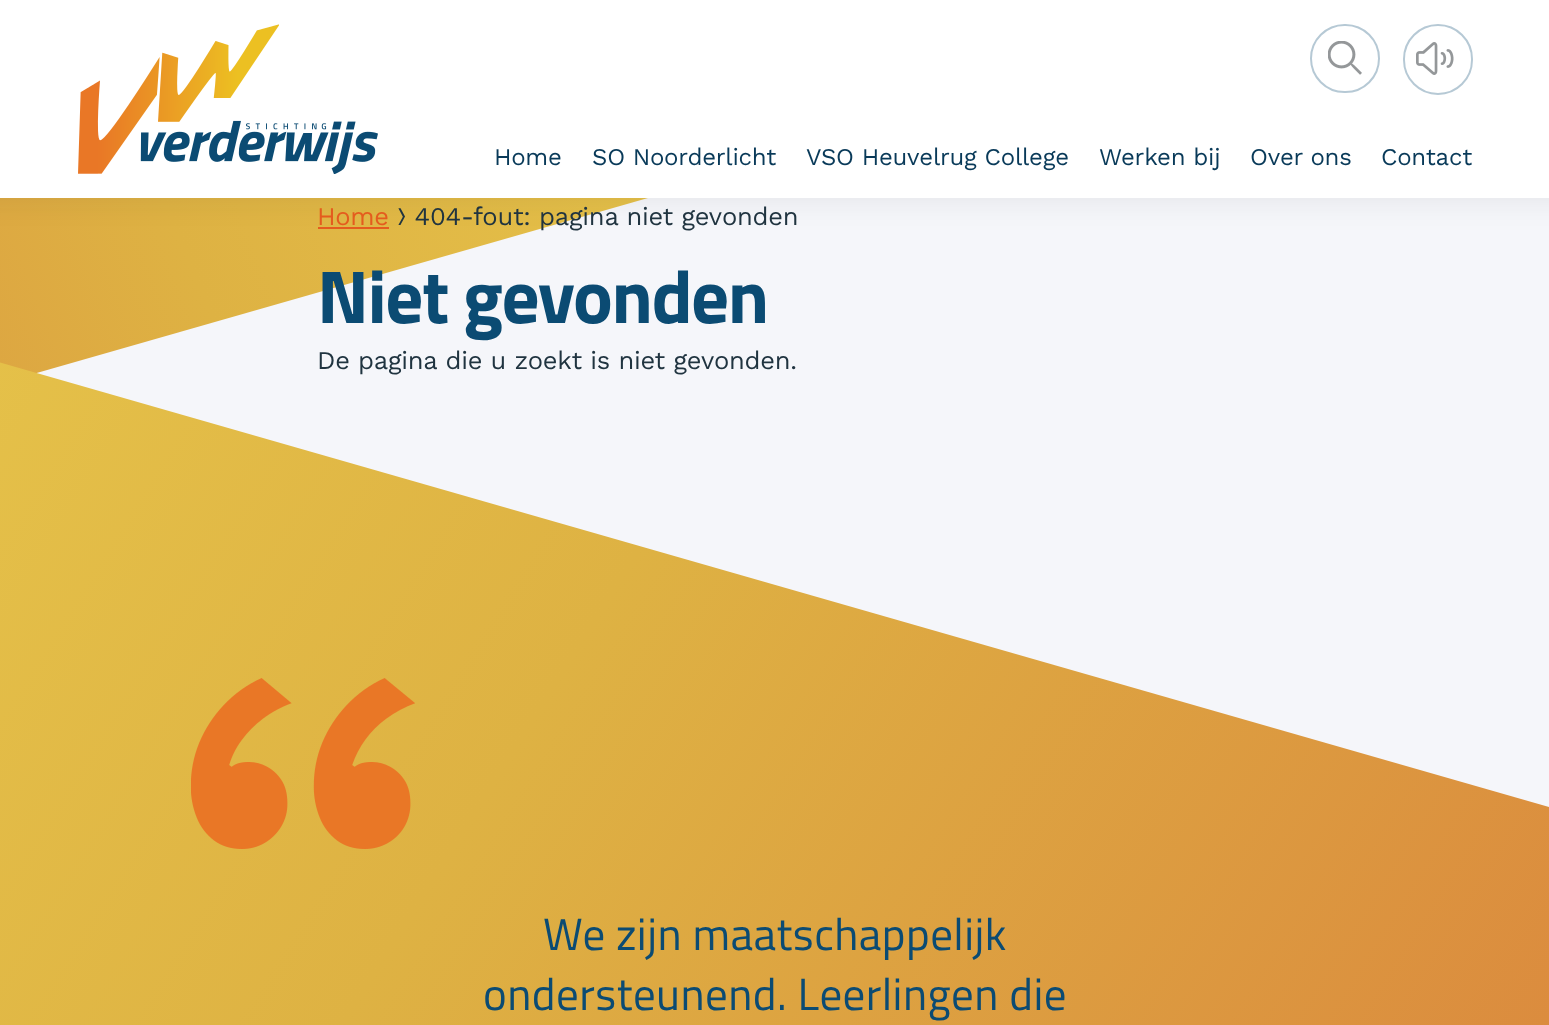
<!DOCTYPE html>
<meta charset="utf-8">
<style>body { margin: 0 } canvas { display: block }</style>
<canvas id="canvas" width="1549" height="1025"></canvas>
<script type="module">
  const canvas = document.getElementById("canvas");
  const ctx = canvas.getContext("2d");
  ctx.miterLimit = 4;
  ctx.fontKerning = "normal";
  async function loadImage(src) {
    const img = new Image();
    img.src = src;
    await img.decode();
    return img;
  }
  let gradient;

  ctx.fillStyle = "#f5f6fa";
  ctx.fillRect(0, 0, 1549, 1025);
  gradient = ctx.createLinearGradient(-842, 494, 581, -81);
  gradient.addColorStop(0, "#da7c3c");
  gradient.addColorStop(0.68, "#deb243");
  gradient.addColorStop(1, "#e5c149");
  ctx.fillStyle = gradient;
  ctx.beginPath();
  ctx.moveTo(-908, 215);
  ctx.lineTo(534, -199);
  ctx.lineTo(648, 198);
  ctx.lineTo(-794, 611);
  ctx.closePath();
  ctx.fill();
  ctx.fillStyle = "#e45c1e";
  ctx.fillRect(318, 227, 71, 2);
  ctx.fillStyle = "rgba(26, 26, 26, 0.09)";
  ctx.filter = "blur(15px)";
  ctx.beginPath();
  ctx.rect(-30, -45, 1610, 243);
  ctx.fill();
  ctx.filter = "none";
  ctx.fillStyle = "#ffffff";
  ctx.fillRect(0, 0, 1549, 198);
  ctx.drawImage(await loadImage("img1.png"), 78, 24, 300, 150);
  ctx.drawImage(await loadImage("img2.png"), 1328, 41, 34, 34);
  ctx.beginPath();
  ctx.roundRect(1311, 25, 68, 67, 33.5);
  ctx.strokeStyle = "#b6c9d5";
  ctx.lineWidth = 2;
  ctx.stroke();
  ctx.drawImage(await loadImage("img3.png"), 1416, 42, 38, 33);
  ctx.beginPath();
  ctx.roundRect(1404, 25, 68, 69, 34);
  ctx.stroke();
  ctx.letterSpacing = "-0.25px";
  ctx.font = "24px Work Sans";
  ctx.fillStyle = "#093a59";
  ctx.fillText("Home", 494, 165);
  ctx.fillText("SO Noorderlicht", 592, 165);
  ctx.fillText("VSO Heuvelrug College", 806, 165);
  ctx.fillText("Werken bij", 1099, 165);
  ctx.fillText("Over ons", 1250, 165);
  ctx.fillText("Contact", 1381, 165);
  ctx.font = "25.5px Work Sans";
  ctx.fillStyle = "#e45c1e";
  ctx.fillText("Home", 317, 225);
  ctx.fillStyle = "#203440";
  ctx.fillText("⟩ 404-fout: pagina niet gevonden", 398, 225);
  ctx.letterSpacing = "-1.5px";
  ctx.font = "bold 75px Titillium Web";
  ctx.fillStyle = "#0b4b73";
  ctx.fillText("Niet gevonden", 317, 323);
  ctx.letterSpacing = "-0.25px";
  ctx.font = "25.5px Work Sans";
  ctx.fillStyle = "#203440";
  ctx.fillText("De pagina die u zoekt is niet gevonden.", 317, 369);
  gradient = ctx.createLinearGradient(-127, 490, 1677, 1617);
  gradient.addColorStop(0, "#e5c149");
  gradient.addColorStop(0.32, "#deb243");
  gradient.addColorStop(1, "#da7c3c");
  ctx.fillStyle = gradient;
  ctx.beginPath();
  ctx.moveTo(-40, 351);
  ctx.lineTo(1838, 890);
  ctx.lineTo(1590, 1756);
  ctx.lineTo(-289, 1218);
  ctx.closePath();
  ctx.fill();
  ctx.drawImage(await loadImage("img4.png"), 191, 678, 224, 171);
  ctx.letterSpacing = "0.45px";
  ctx.font = "45px Titillium Web";
  ctx.fillStyle = "#0b4b73";
  ctx.fillText("We zijn maatschappelijk", 543, 950);
  ctx.fillText("ondersteunend. Leerlingen die", 483, 1010);
</script>
